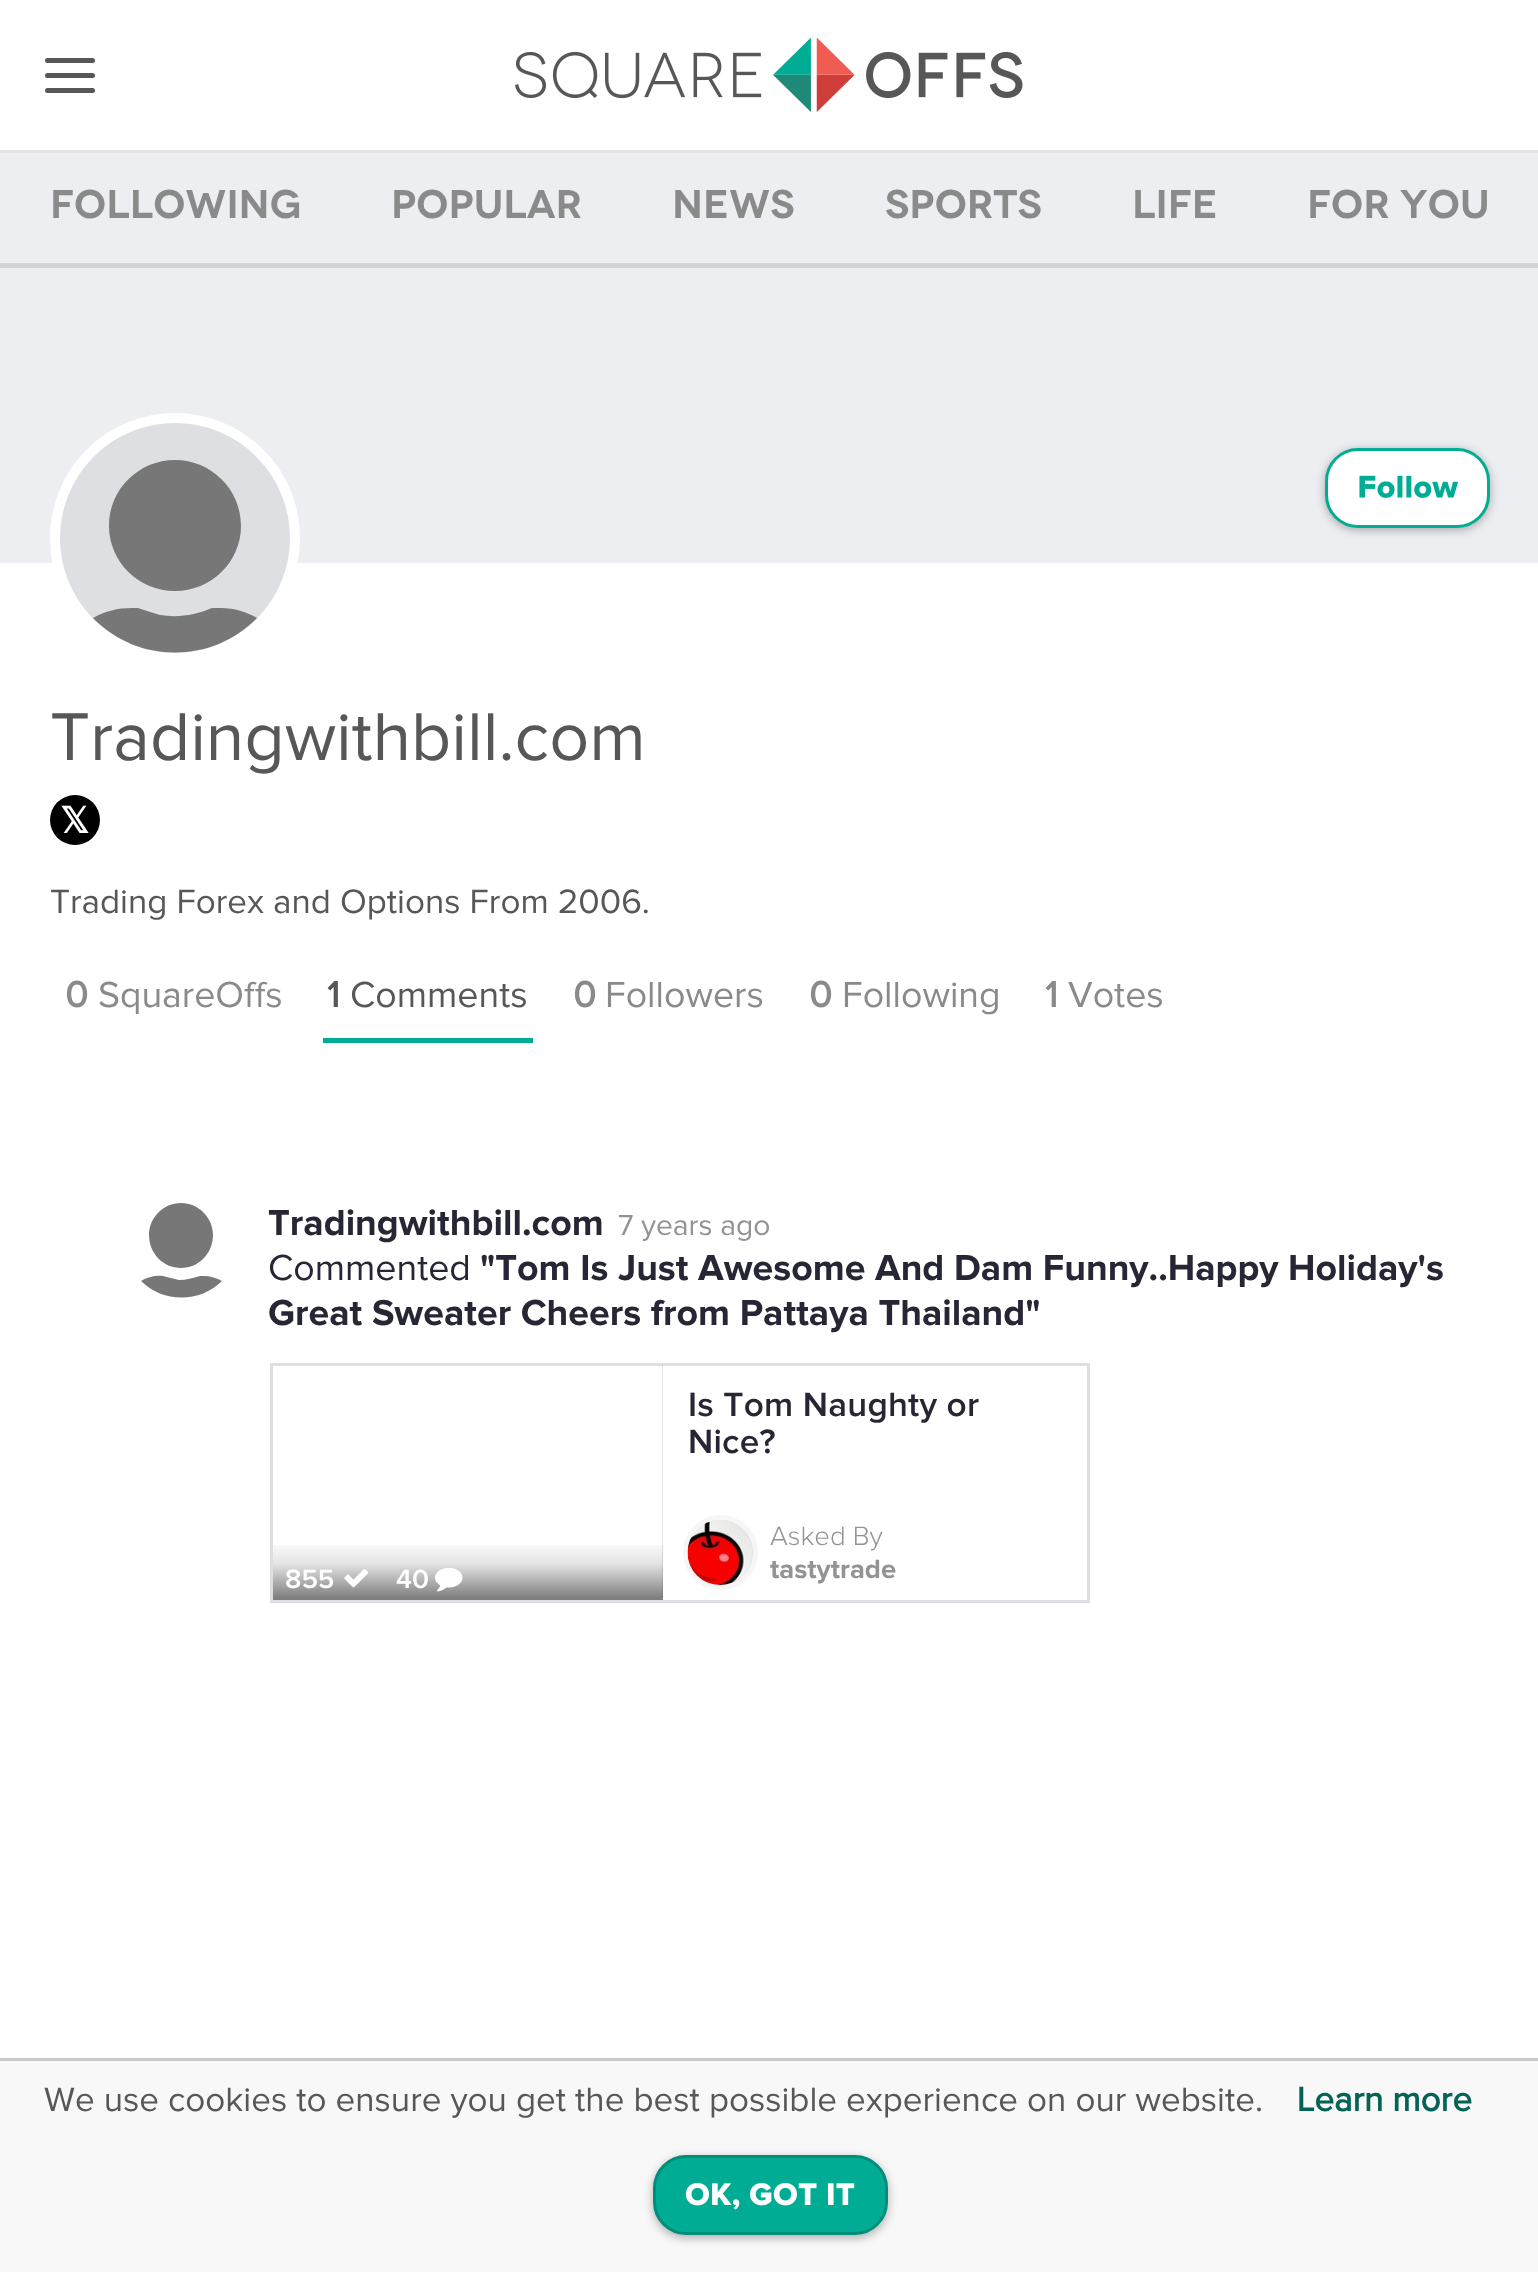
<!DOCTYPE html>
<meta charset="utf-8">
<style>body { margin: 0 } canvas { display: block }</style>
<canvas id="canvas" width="1538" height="2272"></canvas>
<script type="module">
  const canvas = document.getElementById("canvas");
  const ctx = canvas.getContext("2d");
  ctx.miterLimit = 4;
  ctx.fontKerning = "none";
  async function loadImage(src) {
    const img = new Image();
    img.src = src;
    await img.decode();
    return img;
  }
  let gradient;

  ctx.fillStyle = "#ffffff";
  ctx.fillRect(0, 0, 1538, 2272);
  ctx.fillStyle = "#e4e4e7";
  ctx.fillRect(0, 150, 1538, 3);
  ctx.drawImage(await loadImage("img1.png"), 515, 38, 508, 74);
  ctx.fillStyle = "#575757";
  ctx.beginPath();
  ctx.roundRect(45, 73, 50, 5, 2.5);
  ctx.fill();
  ctx.beginPath();
  ctx.roundRect(45, 58, 50, 5, 2.5);
  ctx.fill();
  ctx.beginPath();
  ctx.roundRect(45, 88, 50, 5, 2.5);
  ctx.fill();
  ctx.fillStyle = "#edeef1";
  ctx.fillRect(0, 153, 1538, 110);
  ctx.fillStyle = "#d3d4d6";
  ctx.fillRect(0, 263, 1538, 5);
  ctx.font = "600 40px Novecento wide";
  ctx.fillStyle = "#8a8a8a";
  ctx.fillText("Following", 50, 218);
  ctx.fillText("Popular", 391, 218);
  ctx.fillText("News", 672, 218);
  ctx.fillText("Sports", 885, 218);
  ctx.fillText("Life", 1132, 218);
  ctx.fillText("For you", 1307, 218);
  ctx.fillStyle = "#edeef1";
  ctx.fillRect(0, 268, 1538, 295);
  ctx.fillStyle = "#dedfe2";
  ctx.beginPath();
  ctx.arc(175, 538, 120, 0, Math.PI * 2);
  ctx.fill();
  ctx.strokeStyle = "#ffffff";
  ctx.lineWidth = 10;
  ctx.stroke();
  ctx.fillStyle = "#777777";
  ctx.beginPath();
  ctx.moveTo(221, 608);
  ctx.bezierCurveTo(234, 608, 247, 612, 257, 618);
  ctx.bezierCurveTo(212, 664, 138, 664, 93, 618);
  ctx.bezierCurveTo(105, 611, 118, 608, 132, 608);
  ctx.lineTo(138, 608);
  ctx.lineTo(147, 611);
  ctx.lineTo(160, 615);
  ctx.bezierCurveTo(178, 618, 196, 615, 212, 608);
  ctx.closePath();
  ctx.moveTo(175, 591);
  ctx.bezierCurveTo(139, 591, 109, 562, 109, 526);
  ctx.bezierCurveTo(109, 489, 139, 460, 175, 460);
  ctx.bezierCurveTo(211, 460, 241, 489, 241, 526);
  ctx.bezierCurveTo(241, 562, 211, 591, 175, 591);
  ctx.closePath();
  ctx.fill("evenodd");
  ctx.fillStyle = "rgba(0, 0, 0, 0.3)";
  ctx.filter = "blur(5px)";
  ctx.beginPath();
  ctx.roundRect(1325, 450, 165, 80, 33);
  ctx.fill();
  ctx.filter = "none";
  ctx.fillStyle = "#ffffff";
  ctx.beginPath();
  ctx.roundRect(1326.5, 449.5, 162, 77, 31.5);
  ctx.fill();
  ctx.strokeStyle = "#00ad94";
  ctx.lineWidth = 3;
  ctx.stroke();
  ctx.drawImage(await loadImage("img2.png"), 1359, 475, 100, 23);
  ctx.font = "70px Proxima Nova";
  ctx.fillStyle = "#575757";
  ctx.fillText("Tradingwithbill.com", 50, 760);
  ctx.fillStyle = "#000000";
  ctx.beginPath();
  ctx.arc(75, 820, 25, 0, Math.PI * 2);
  ctx.fill();
  ctx.font = "bold 36px DejaVu Sans";
  ctx.fillStyle = "#ffffff";
  ctx.fillText("𝕏", 60, 833);
  ctx.font = "35px Proxima Nova";
  ctx.fillStyle = "#575757";
  ctx.fillText("Trading Forex and Options From 2006.", 50, 913);
  ctx.font = "bold 37.5px 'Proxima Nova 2'";
  ctx.fillStyle = "#8a8a8a";
  ctx.fillText("0", 65, 1007);
  ctx.font = "37.5px Proxima Nova";
  ctx.fillText("SquareOffs", 98, 1007);
  ctx.fillStyle = "#00ad94";
  ctx.fillRect(323, 1038, 210, 5);
  ctx.font = "bold 37.5px 'Proxima Nova 2'";
  ctx.fillStyle = "#575757";
  ctx.fillText("1", 327, 1007);
  ctx.font = "37.5px Proxima Nova";
  ctx.fillText("Comments", 350, 1007);
  ctx.font = "bold 37.5px 'Proxima Nova 2'";
  ctx.fillStyle = "#8a8a8a";
  ctx.fillText("0", 573, 1007);
  ctx.font = "37.5px Proxima Nova";
  ctx.fillText("Followers", 605, 1007);
  ctx.font = "bold 37.5px 'Proxima Nova 2'";
  ctx.fillText("0", 809, 1007);
  ctx.font = "37.5px Proxima Nova";
  ctx.fillText("Following", 842, 1007);
  ctx.font = "bold 37.5px 'Proxima Nova 2'";
  ctx.fillText("1", 1045, 1007);
  ctx.font = "37.5px Proxima Nova";
  ctx.fillText("Votes", 1068, 1007);
  ctx.fillStyle = "#777777";
  ctx.beginPath();
  ctx.moveTo(204, 1276);
  ctx.bezierCurveTo(210, 1276, 217, 1278, 222, 1281);
  ctx.bezierCurveTo(200, 1303, 163, 1303, 141, 1281);
  ctx.bezierCurveTo(147, 1277, 156, 1275, 163, 1276);
  ctx.bezierCurveTo(168, 1277, 173, 1279, 179, 1280);
  ctx.bezierCurveTo(186, 1280, 193, 1278, 200, 1276);
  ctx.closePath();
  ctx.moveTo(181, 1268);
  ctx.bezierCurveTo(163, 1268, 149, 1253, 149, 1235);
  ctx.bezierCurveTo(149, 1218, 163, 1203, 181, 1203);
  ctx.bezierCurveTo(199, 1203, 213, 1218, 213, 1235);
  ctx.bezierCurveTo(213, 1253, 199, 1268, 181, 1268);
  ctx.closePath();
  ctx.fill("evenodd");
  ctx.font = "bold 37.5px Proxima Nova";
  ctx.fillStyle = "#272634";
  ctx.fillText("Tradingwithbill.com", 268, 1235);
  ctx.font = "30px Proxima Nova";
  ctx.fillStyle = "#939395";
  ctx.fillText("7 years ago", 618, 1235);
  ctx.font = "37.5px Proxima Nova";
  ctx.fillStyle = "#272634";
  ctx.fillText("Commented", 268, 1280);
  ctx.font = "bold 37.5px Proxima Nova";
  ctx.fillText("\"Tom Is Just Awesome And Dam Funny..Happy", 480, 1280);
  ctx.fillText("Holiday's", 1288, 1280);
  ctx.fillText("Great Sweater Cheers from Pattaya Thailand\"", 268, 1325);
  ctx.strokeStyle = "#dedfe2";
  ctx.strokeRect(271.5, 1364.5, 817, 237);
  ctx.letterSpacing = "0.25px";
  ctx.font = "600 35px Proxima Nova";
  ctx.fillText("Is Tom Naughty or", 688, 1416);
  ctx.fillText("Nice?", 688, 1453);
  gradient = ctx.createLinearGradient(468, 1365, 468, 1598);
  gradient.addColorStop(0, "rgba(0, 0, 0, 0)");
  gradient.addColorStop(0.75, "rgba(0, 0, 0, 0)");
  gradient.addColorStop(0.85, "rgba(0, 0, 0, 0.1)");
  gradient.addColorStop(1, "rgba(0, 0, 0, 0.5)");
  ctx.fillStyle = gradient;
  ctx.fillRect(273, 1545, 390, 53);
  ctx.save();
  ctx.beginPath();
  ctx.rect(273, 1365, 390, 235);
  ctx.clip();
  ctx.fillStyle = "rgba(0, 0, 0, 0.1)";
  ctx.beginPath();
  ctx.moveTo(665, 1362);
  ctx.lineTo(665, 1600);
  ctx.lineTo(662, 1598);
  ctx.lineTo(662, 1365);
  ctx.closePath();
  ctx.fill();
  ctx.fillStyle = "rgba(0, 0, 0, 0.5)";
  ctx.beginPath();
  ctx.moveTo(665, 1600);
  ctx.lineTo(270, 1600);
  ctx.lineTo(272, 1598);
  ctx.lineTo(662, 1598);
  ctx.closePath();
  ctx.fill();
  ctx.restore();
  ctx.letterSpacing = "0px";
  ctx.font = "600 27.5px Proxima Nova";
  ctx.fillStyle = "#ffffff";
  ctx.fillText("855", 285, 1588);
  ctx.drawImage(await loadImage("img3.png"), 344, 1569, 25, 19);
  ctx.fillText("40", 396, 1588);
  ctx.drawImage(await loadImage("img4.png"), 435, 1567, 28, 25);
  ctx.fillStyle = "#dedfe2";
  ctx.beginPath();
  ctx.arc(720.5, 1552.5, 35, 0, Math.PI * 2);
  ctx.fill();
  ctx.strokeStyle = "#f6f6f6";
  ctx.lineWidth = 5;
  ctx.stroke();
  ctx.drawImage(await loadImage("img5.png"), 687, 1520, 66, 65);
  ctx.font = "300 27.5px Proxima Nova";
  ctx.fillStyle = "#939395";
  ctx.fillText("Asked By", 770, 1545);
  ctx.font = "bold 27.5px Proxima Nova";
  ctx.fillText("tastytrade", 770, 1578);
  ctx.fillStyle = "#f8f8f8";
  ctx.fillRect(0, 2061, 1538, 211);
  ctx.fillStyle = "#c9cacb";
  ctx.fillRect(0, 2058, 1538, 3);
  ctx.font = "35px Proxima Nova";
  ctx.fillStyle = "#575757";
  ctx.fillText("We use cookies to ensure you get the best possible experience on our website.", 44, 2111);
  ctx.font = "bold 35px 'Proxima Nova 2'";
  ctx.fillStyle = "#036355";
  ctx.fillText("Learn more", 1297, 2111);
  ctx.fillStyle = "rgba(0, 0, 0, 0.3)";
  ctx.filter = "blur(5px)";
  ctx.beginPath();
  ctx.roundRect(653, 2158, 235, 80, 33);
  ctx.fill();
  ctx.filter = "none";
  ctx.fillStyle = "#00ad94";
  ctx.beginPath();
  ctx.roundRect(654.5, 2156.5, 232, 77, 31.5);
  ctx.fill();
  ctx.strokeStyle = "#008e7a";
  ctx.lineWidth = 3;
  ctx.stroke();
  ctx.drawImage(await loadImage("img6.png"), 685, 2183, 170, 27);
</script>
